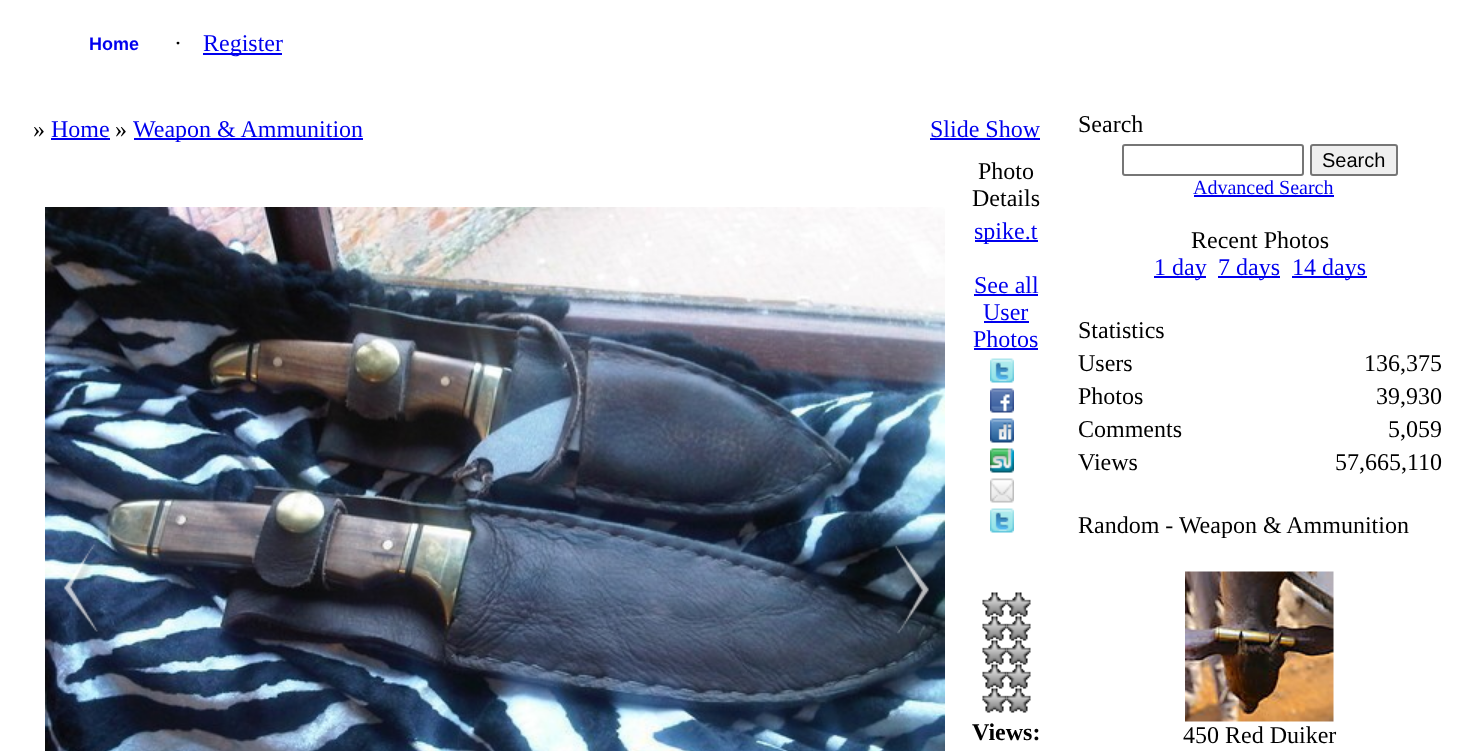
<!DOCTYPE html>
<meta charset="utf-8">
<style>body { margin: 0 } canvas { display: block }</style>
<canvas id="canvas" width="1470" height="751"></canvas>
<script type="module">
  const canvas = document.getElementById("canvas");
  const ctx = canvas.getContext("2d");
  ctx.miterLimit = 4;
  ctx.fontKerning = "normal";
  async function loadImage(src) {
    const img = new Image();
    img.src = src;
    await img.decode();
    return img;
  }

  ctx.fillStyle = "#ffffff";
  ctx.fillRect(0, 0, 1470, 751);
  ctx.font = "bold 18px Liberation Sans";
  ctx.fillStyle = "#0000ee";
  ctx.fillText("Home", 89, 50);
  ctx.font = "24px Liberation Serif";
  ctx.fillStyle = "#000000";
  ctx.fillText("·", 174, 51);
  ctx.fillStyle = "#0000ee";
  ctx.fillRect(203, 53, 79, 2);
  ctx.fillText("Register", 203, 51);
  ctx.fillStyle = "#000000";
  ctx.fillText("»", 33, 137);
  ctx.fillStyle = "#0000ee";
  ctx.fillText("Home", 51, 137);
  ctx.fillRect(51, 138, 59, 2);
  ctx.fillStyle = "#000000";
  ctx.fillText("»", 115, 137);
  ctx.fillStyle = "#0000ee";
  ctx.fillRect(134, 138, 229, 2);
  ctx.fillText("Weapon & Ammunition", 133, 137);
  ctx.fillText("Slide Show", 930, 137);
  ctx.fillRect(930, 138, 110, 2);
  ctx.drawImage(await loadImage("img1.png"), 45, 207, 900, 544);
  ctx.drawImage(await loadImage("img2.png"), 64, 544, 34, 88);
  ctx.drawImage(await loadImage("img3.png"), 895, 545, 34, 89);
  ctx.fillStyle = "#000000";
  ctx.fillText("Photo", 978, 179);
  ctx.fillText("Details", 972, 206);
  ctx.fillStyle = "#0000ee";
  ctx.fillRect(975, 240, 63, 2);
  ctx.fillText("spike.t", 974, 239);
  ctx.fillText("See all", 974, 293);
  ctx.fillRect(974, 294, 64, 2);
  ctx.fillText("User", 983, 320);
  ctx.fillRect(984, 321, 45, 2);
  ctx.fillText("Photos", 973, 347);
  ctx.fillRect(974, 348, 64, 2);
  ctx.drawImage(await loadImage("img4.png"), 990, 358, 24, 25);
  ctx.drawImage(await loadImage("img5.png"), 990, 388, 24, 25);
  ctx.drawImage(await loadImage("img6.png"), 990, 418, 24, 25);
  ctx.drawImage(await loadImage("img7.png"), 990, 448, 24, 25);
  ctx.drawImage(await loadImage("img8.png"), 990, 478, 24, 25);
  ctx.drawImage(await loadImage("img4.png"), 990, 508, 24, 25);
  ctx.drawImage(await loadImage("img9.png"), 982, 592, 25, 25);
  ctx.drawImage(await loadImage("img10.png"), 1006, 592, 25, 25);
  ctx.drawImage(await loadImage("img11.png"), 982, 616, 25, 25);
  ctx.drawImage(await loadImage("img12.png"), 1006, 616, 25, 25);
  ctx.drawImage(await loadImage("img11.png"), 982, 640, 25, 25);
  ctx.drawImage(await loadImage("img12.png"), 1006, 640, 25, 25);
  ctx.drawImage(await loadImage("img11.png"), 982, 664, 25, 25);
  ctx.drawImage(await loadImage("img12.png"), 1006, 664, 25, 25);
  ctx.drawImage(await loadImage("img11.png"), 982, 688, 25, 25);
  ctx.drawImage(await loadImage("img12.png"), 1006, 688, 25, 25);
  ctx.font = "bold 24px Liberation Serif";
  ctx.fillStyle = "#000000";
  ctx.fillText("Views:", 972, 740);
  ctx.font = "24px Liberation Serif";
  ctx.fillText("Search", 1078, 132);
  ctx.beginPath();
  ctx.roundRect(1123, 145, 180, 30, 2);
  ctx.strokeStyle = "#767676";
  ctx.lineWidth = 2;
  ctx.stroke();
  ctx.fillStyle = "#efefef";
  ctx.beginPath();
  ctx.roundRect(1311, 145, 86, 30, 2);
  ctx.fill();
  ctx.stroke();
  ctx.font = "20px Liberation Sans";
  ctx.fillStyle = "#000000";
  ctx.fillText("Search", 1322, 167);
  ctx.font = "20px Liberation Serif";
  ctx.fillStyle = "#0000ee";
  ctx.fillText("Advanced Search", 1193, 194);
  ctx.fillRect(1194, 195, 140, 2);
  ctx.font = "24px Liberation Serif";
  ctx.fillStyle = "#000000";
  ctx.fillText("Recent Photos", 1191, 248);
  ctx.fillStyle = "#0000ee";
  ctx.fillRect(1154, 276, 52, 2);
  ctx.fillText("1 day", 1154, 275);
  ctx.fillRect(1218, 276, 62, 2);
  ctx.fillText("7 days", 1218, 275);
  ctx.fillRect(1292, 276, 75, 2);
  ctx.fillText("14 days", 1292, 275);
  ctx.fillStyle = "#000000";
  ctx.fillText("Statistics", 1078, 338);
  ctx.fillText("Users", 1078, 371);
  ctx.fillText("136,375", 1364, 371);
  ctx.fillText("Photos", 1078, 404);
  ctx.fillText("39,930", 1376, 404);
  ctx.fillText("Comments", 1078, 437);
  ctx.fillText("5,059", 1388, 437);
  ctx.fillText("Views", 1078, 470);
  ctx.fillText("57,665,110", 1335, 470);
  ctx.fillText("Random - Weapon & Ammunition", 1078, 533);
  ctx.drawImage(await loadImage("img13.png"), 1185, 571, 149, 151);
  ctx.fillText("450 Red Duiker", 1183, 743);
</script>
